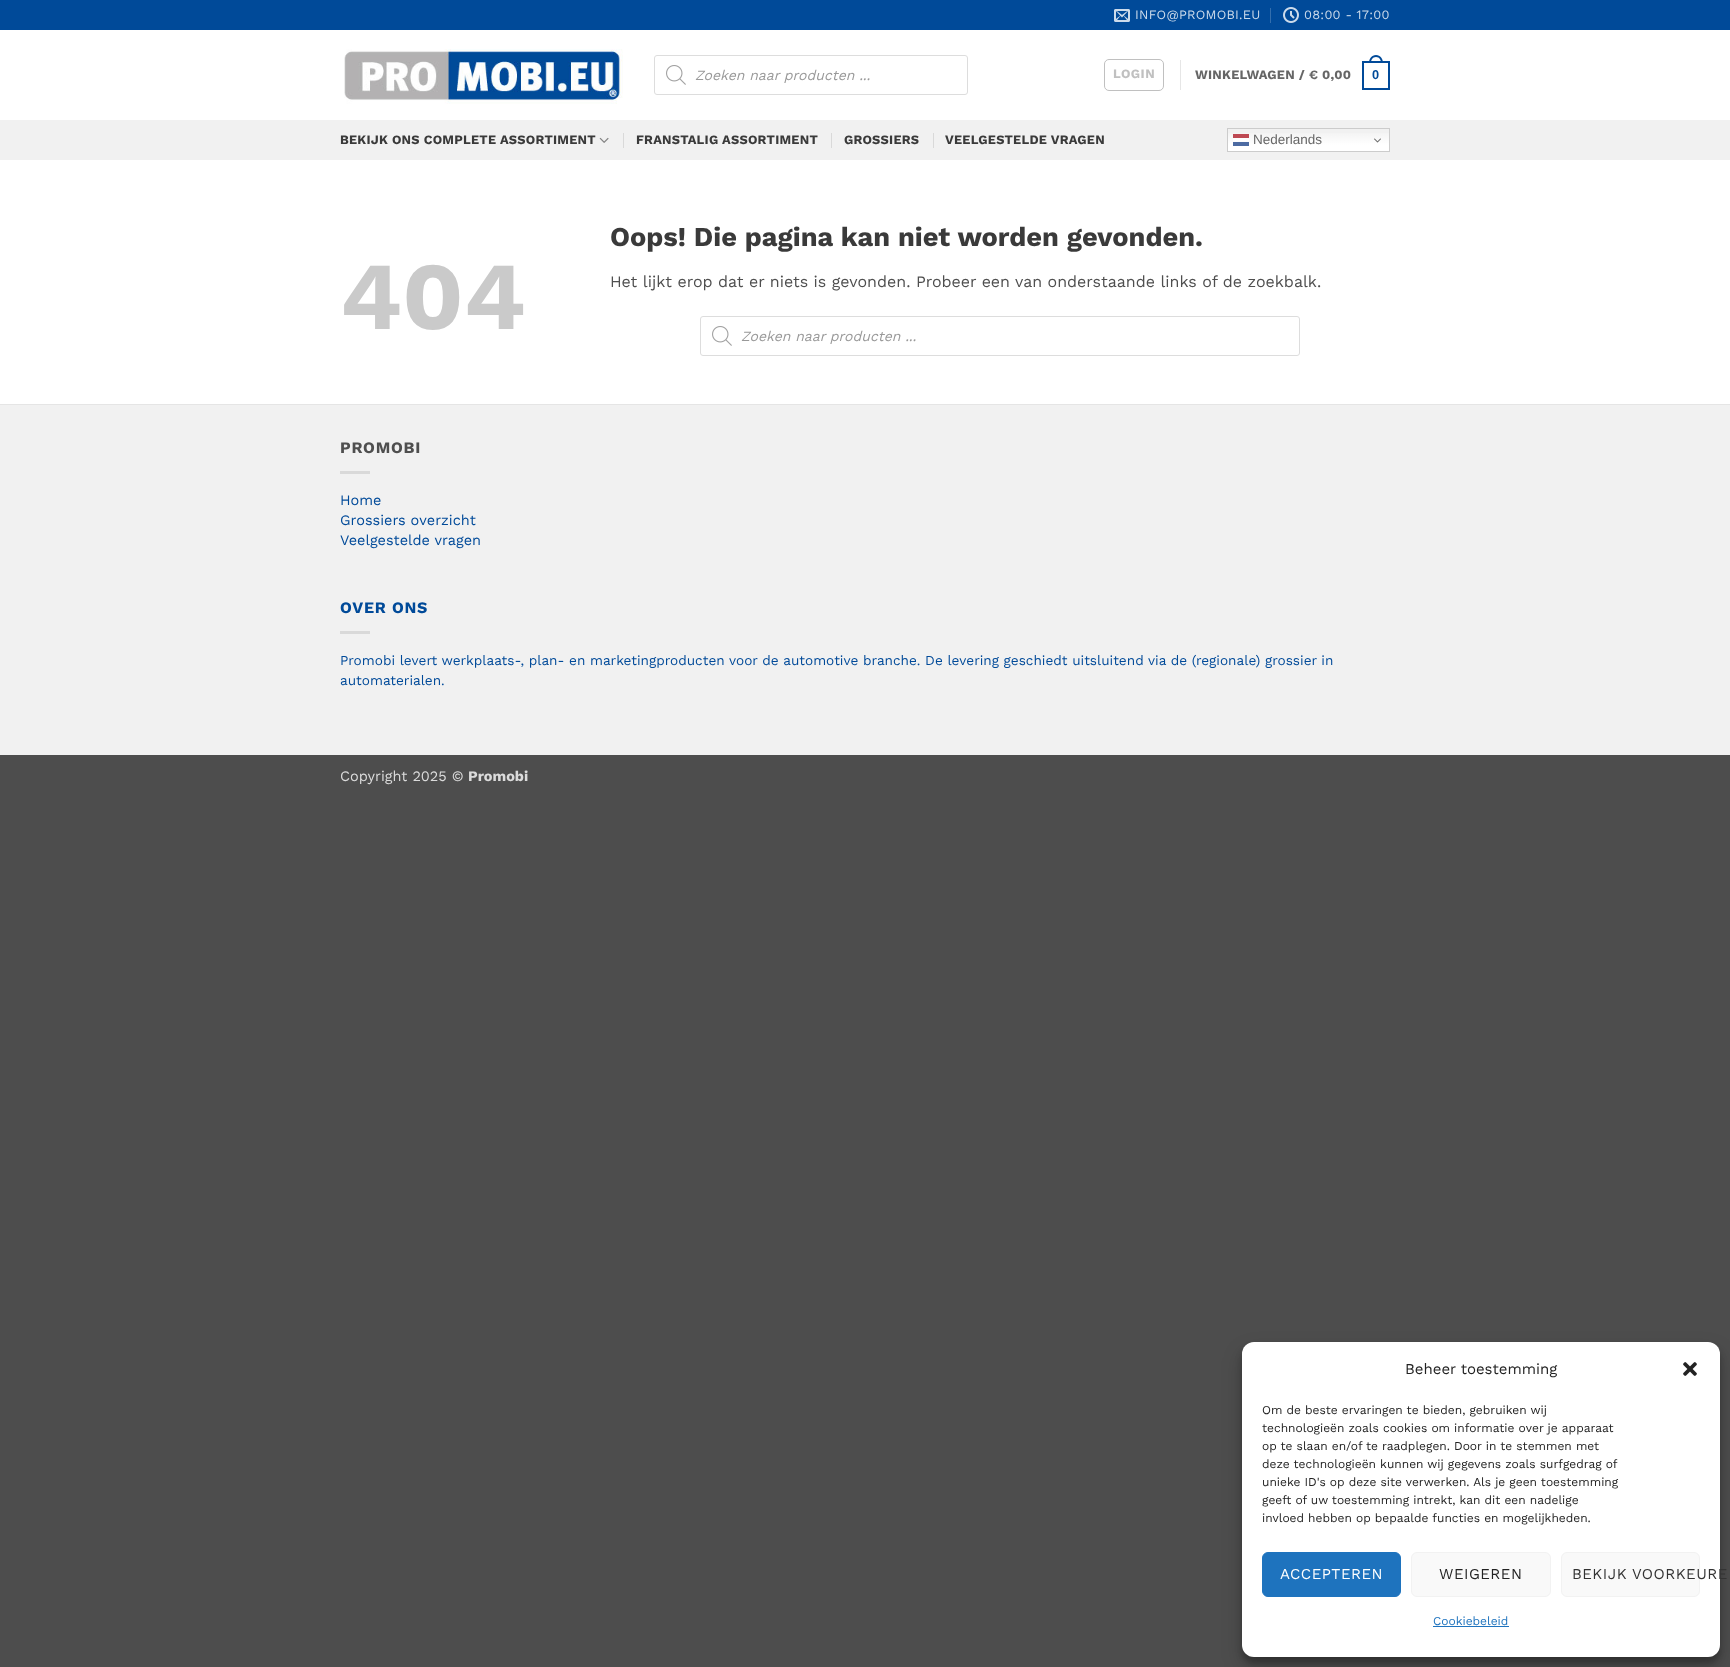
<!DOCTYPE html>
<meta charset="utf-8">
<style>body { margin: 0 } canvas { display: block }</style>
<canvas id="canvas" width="1730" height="1667"></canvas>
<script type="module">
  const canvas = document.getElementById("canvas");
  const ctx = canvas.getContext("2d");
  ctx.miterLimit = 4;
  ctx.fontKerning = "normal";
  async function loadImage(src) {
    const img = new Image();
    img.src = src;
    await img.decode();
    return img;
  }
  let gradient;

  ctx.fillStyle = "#4d4d4d";
  ctx.fillRect(0, 0, 1730, 1667);
  ctx.fillStyle = "#ffffff";
  ctx.fillRect(0, 30, 1730, 374);
  ctx.fillStyle = "#004a99";
  ctx.fillRect(0, 0, 1730, 30);
  ctx.drawImage(await loadImage("img1.png"), 1114, 9, 16, 13);
  ctx.letterSpacing = "0.25px";
  ctx.font = "12.8px Work Sans";
  ctx.fillStyle = "#ccdbeb";
  ctx.fillText("INFO@PROMOBI.EU", 1135, 19);
  ctx.fillStyle = "#336ead";
  ctx.fillRect(1270, 8, 1, 15);
  ctx.drawImage(await loadImage("img2.png"), 1283, 7, 16, 16);
  ctx.fillStyle = "#ccdbeb";
  ctx.fillText("08:00 - 17:00", 1304, 19);
  ctx.drawImage(await loadImage("img3.png"), 344, 49, 279, 55);
  ctx.beginPath();
  ctx.roundRect(654.5, 55.5, 313, 39, 2.5);
  ctx.strokeStyle = "#dddddd";
  ctx.stroke();
  ctx.drawImage(await loadImage("img4.png"), 666, 65, 20, 20);
  ctx.letterSpacing = "0px";
  ctx.font = "italic 14px Work Sans";
  ctx.fillStyle = "#999999";
  ctx.fillText("Zoeken naar producten ...", 695, 80);
  ctx.beginPath();
  ctx.roundRect(1104.5, 59.5, 59, 31, 4.5);
  ctx.strokeStyle = "#c0c0c0";
  ctx.stroke();
  ctx.letterSpacing = "0.5px";
  ctx.font = "bold 12.8px Work Sans";
  ctx.fillStyle = "#c0c0c0";
  ctx.fillText("LOGIN", 1113, 78);
  ctx.fillStyle = "#e6e6e6";
  ctx.fillRect(1180, 60, 1, 30);
  ctx.letterSpacing = "0.25px";
  ctx.fillStyle = "#666666";
  ctx.fillText("WINKELWAGEN / € 0,00", 1195, 79);
  ctx.strokeStyle = "#004a99";
  ctx.lineWidth = 2;
  ctx.strokeRect(1363, 62, 26, 27);
  ctx.fillStyle = "#004a99";
  ctx.beginPath();
  ctx.moveTo(1376, 55);
  ctx.bezierCurveTo(1380.5, 55, 1383, 59, 1383, 63);
  ctx.lineTo(1369, 63);
  ctx.bezierCurveTo(1369, 59, 1371.5, 55, 1376, 55);
  ctx.closePath();
  ctx.moveTo(1376, 57);
  ctx.bezierCurveTo(1379.5, 57, 1381, 60, 1381, 63);
  ctx.lineTo(1371, 63);
  ctx.bezierCurveTo(1371, 60, 1372.5, 57, 1376, 57);
  ctx.closePath();
  ctx.fill("evenodd");
  ctx.font = "bold 12.8px Liberation Sans";
  ctx.fillText("0", 1372, 79);
  ctx.fillStyle = "#f1f1f1";
  ctx.fillRect(0, 120, 1730, 40);
  ctx.font = "bold 12.8px Work Sans";
  ctx.fillStyle = "#3a3a3a";
  ctx.fillText("BEKIJK ONS COMPLETE ASSORTIMENT", 340, 144);
  ctx.drawImage(await loadImage("img5.png"), 599, 137, 10, 6);
  ctx.fillStyle = "#d9d9d9";
  ctx.fillRect(623, 133, 1, 15);
  ctx.fillStyle = "#3a3a3a";
  ctx.fillText("FRANSTALIG ASSORTIMENT", 636, 144);
  ctx.fillStyle = "#d9d9d9";
  ctx.fillRect(831, 133, 1, 15);
  ctx.fillStyle = "#3a3a3a";
  ctx.fillText("GROSSIERS", 844, 144);
  ctx.fillStyle = "#d9d9d9";
  ctx.fillRect(933, 133, 1, 15);
  ctx.fillStyle = "#3a3a3a";
  ctx.fillText("VEELGESTELDE VRAGEN", 945, 144);
  gradient = ctx.createLinearGradient(1309, 128, 1309, 152);
  gradient.addColorStop(0, "#efefef");
  gradient.addColorStop(0.7, "#ffffff");
  ctx.fillStyle = gradient;
  ctx.fillRect(1228, 133, 161, 18);
  gradient = ctx.createLinearGradient(1309, 128, 1309, 152);
  gradient.addColorStop(0, "#fcfcfc");
  gradient.addColorStop(0.7, "#ffffff");
  ctx.fillStyle = gradient;
  ctx.fillRect(1233, 138, 16, 3);
  ctx.strokeStyle = "#cccccc";
  ctx.lineWidth = 1;
  ctx.strokeRect(1227.5, 128.5, 162, 23);
  ctx.fillStyle = "#be4953";
  ctx.fillRect(1233, 134, 16, 4);
  ctx.letterSpacing = "0px";
  ctx.font = "13.5px Liberation Sans";
  ctx.fillStyle = "#666666";
  ctx.fillText("Nederlands", 1253, 144);
  ctx.drawImage(await loadImage("img6.png"), 1374, 138, 7, 5);
  ctx.fillStyle = "#4d6ba2";
  ctx.fillRect(1233, 142, 16, 4);
  ctx.font = "bold 96px Work Sans";
  ctx.fillStyle = "#cacaca";
  ctx.fillText("404", 340, 329);
  ctx.font = "bold 27.2px Work Sans";
  ctx.fillStyle = "#3a3a3a";
  ctx.fillText("Oops! Die pagina kan niet worden gevonden.", 610, 246);
  ctx.font = "16px Work Sans";
  ctx.fillStyle = "#4f4f4f";
  ctx.fillText("Het lijkt erop dat er niets is gevonden. Probeer een van onderstaande links of de zoekbalk.", 610, 287);
  ctx.beginPath();
  ctx.roundRect(700.5, 316.5, 599, 39, 2.5);
  ctx.strokeStyle = "#dddddd";
  ctx.stroke();
  ctx.drawImage(await loadImage("img4.png"), 712, 326, 20, 20);
  ctx.font = "italic 14px Work Sans";
  ctx.fillStyle = "#999999";
  ctx.fillText("Zoeken naar producten ...", 741, 341);
  ctx.fillStyle = "#f1f1f1";
  ctx.fillRect(0, 405, 1730, 350);
  ctx.fillStyle = "#e5e5e5";
  ctx.fillRect(0, 404, 1730, 1);
  ctx.letterSpacing = "0.75px";
  ctx.font = "bold 16px Work Sans";
  ctx.fillStyle = "#4f4f4f";
  ctx.fillText("PROMOBI", 340, 453);
  ctx.fillStyle = "#d9d9d9";
  ctx.fillRect(340, 471, 30, 3);
  ctx.letterSpacing = "0px";
  ctx.font = "14.5px Work Sans";
  ctx.fillStyle = "#004a99";
  ctx.fillText("Home", 340, 505);
  ctx.fillText("Grossiers overzicht", 340, 525);
  ctx.fillText("Veelgestelde vragen", 340, 545);
  ctx.letterSpacing = "0.75px";
  ctx.font = "bold 16px Work Sans";
  ctx.fillText("OVER ONS", 340, 613);
  ctx.fillStyle = "#d9d9d9";
  ctx.fillRect(340, 631, 30, 3);
  ctx.letterSpacing = "0px";
  ctx.font = "13.6px Work Sans";
  ctx.fillStyle = "#004a99";
  ctx.fillText("Promobi levert werkplaats-, plan- en marketingproducten voor de automotive branche. De levering geschiedt uitsluitend via de (regionale) grossier in", 340, 665);
  ctx.fillText("automaterialen.", 340, 685);
  ctx.font = "14.5px Work Sans";
  ctx.fillStyle = "#dbdbdb";
  ctx.fillText("Copyright 2025 ©", 340, 781);
  ctx.font = "bold 14.5px Work Sans";
  ctx.fillText("Promobi", 468, 781);
  ctx.fillStyle = "rgba(0, 0, 0, 0.23)";
  ctx.filter = "blur(3px)";
  ctx.beginPath();
  ctx.roundRect(1242, 1348, 478, 315, 12);
  ctx.fill();
  ctx.filter = "none";
  ctx.fillStyle = "rgba(0, 0, 0, 0.19)";
  ctx.filter = "blur(10px)";
  ctx.beginPath();
  ctx.roundRect(1242, 1352, 478, 315, 12);
  ctx.fill();
  ctx.filter = "none";
  ctx.fillStyle = "#ffffff";
  ctx.beginPath();
  ctx.roundRect(1242, 1342, 478, 315, 12);
  ctx.fill();
  ctx.font = "15px Work Sans";
  ctx.fillStyle = "#222222";
  ctx.fillText("Beheer toestemming", 1405, 1374);
  ctx.drawImage(await loadImage("img7.png"), 1683, 1362, 14, 14);
  ctx.font = "12px Work Sans";
  ctx.fillText("Om de beste ervaringen te bieden, gebruiken wij", 1262, 1414);
  ctx.fillText("technologieën zoals cookies om informatie over je apparaat", 1262, 1432);
  ctx.fillText("op te slaan en/of te raadplegen. Door in te stemmen met", 1262, 1450);
  ctx.fillText("deze technologieën kunnen wij gegevens zoals surfgedrag of", 1262, 1468);
  ctx.fillText("unieke ID's op deze site verwerken. Als je geen toestemming", 1262, 1486);
  ctx.fillText("geeft of uw toestemming intrekt, kan dit een nadelige", 1262, 1504);
  ctx.fillText("invloed hebben op bepaalde functies en mogelijkheden.", 1262, 1522);
  ctx.fillStyle = "#1e73be";
  ctx.beginPath();
  ctx.roundRect(1262.5, 1552.5, 138, 44, 5.5);
  ctx.fill();
  ctx.strokeStyle = "#1e73be";
  ctx.stroke();
  ctx.letterSpacing = "0.5px";
  ctx.font = "15px Work Sans";
  ctx.fillStyle = "#ffffff";
  ctx.fillText("ACCEPTEREN", 1280, 1579);
  ctx.fillStyle = "#f9f9f9";
  ctx.beginPath();
  ctx.roundRect(1411.5, 1552.5, 139, 44, 5.5);
  ctx.fill();
  ctx.strokeStyle = "#f2f2f2";
  ctx.stroke();
  ctx.fillStyle = "#222222";
  ctx.fillText("WEIGEREN", 1439, 1579);
  ctx.fillStyle = "#f9f9f9";
  ctx.beginPath();
  ctx.roundRect(1561.5, 1552.5, 138, 44, 5.5);
  ctx.fill();
  ctx.stroke();
  ctx.fillStyle = "#333333";
  ctx.fillText("BEKIJK VOORKEURE", 1572, 1579);
  ctx.letterSpacing = "0px";
  ctx.font = "12px Work Sans";
  ctx.fillStyle = "#1e73be";
  ctx.fillText("Cookiebeleid", 1433, 1625);
  ctx.fillRect(1433, 1626, 76, 1);
</script>
